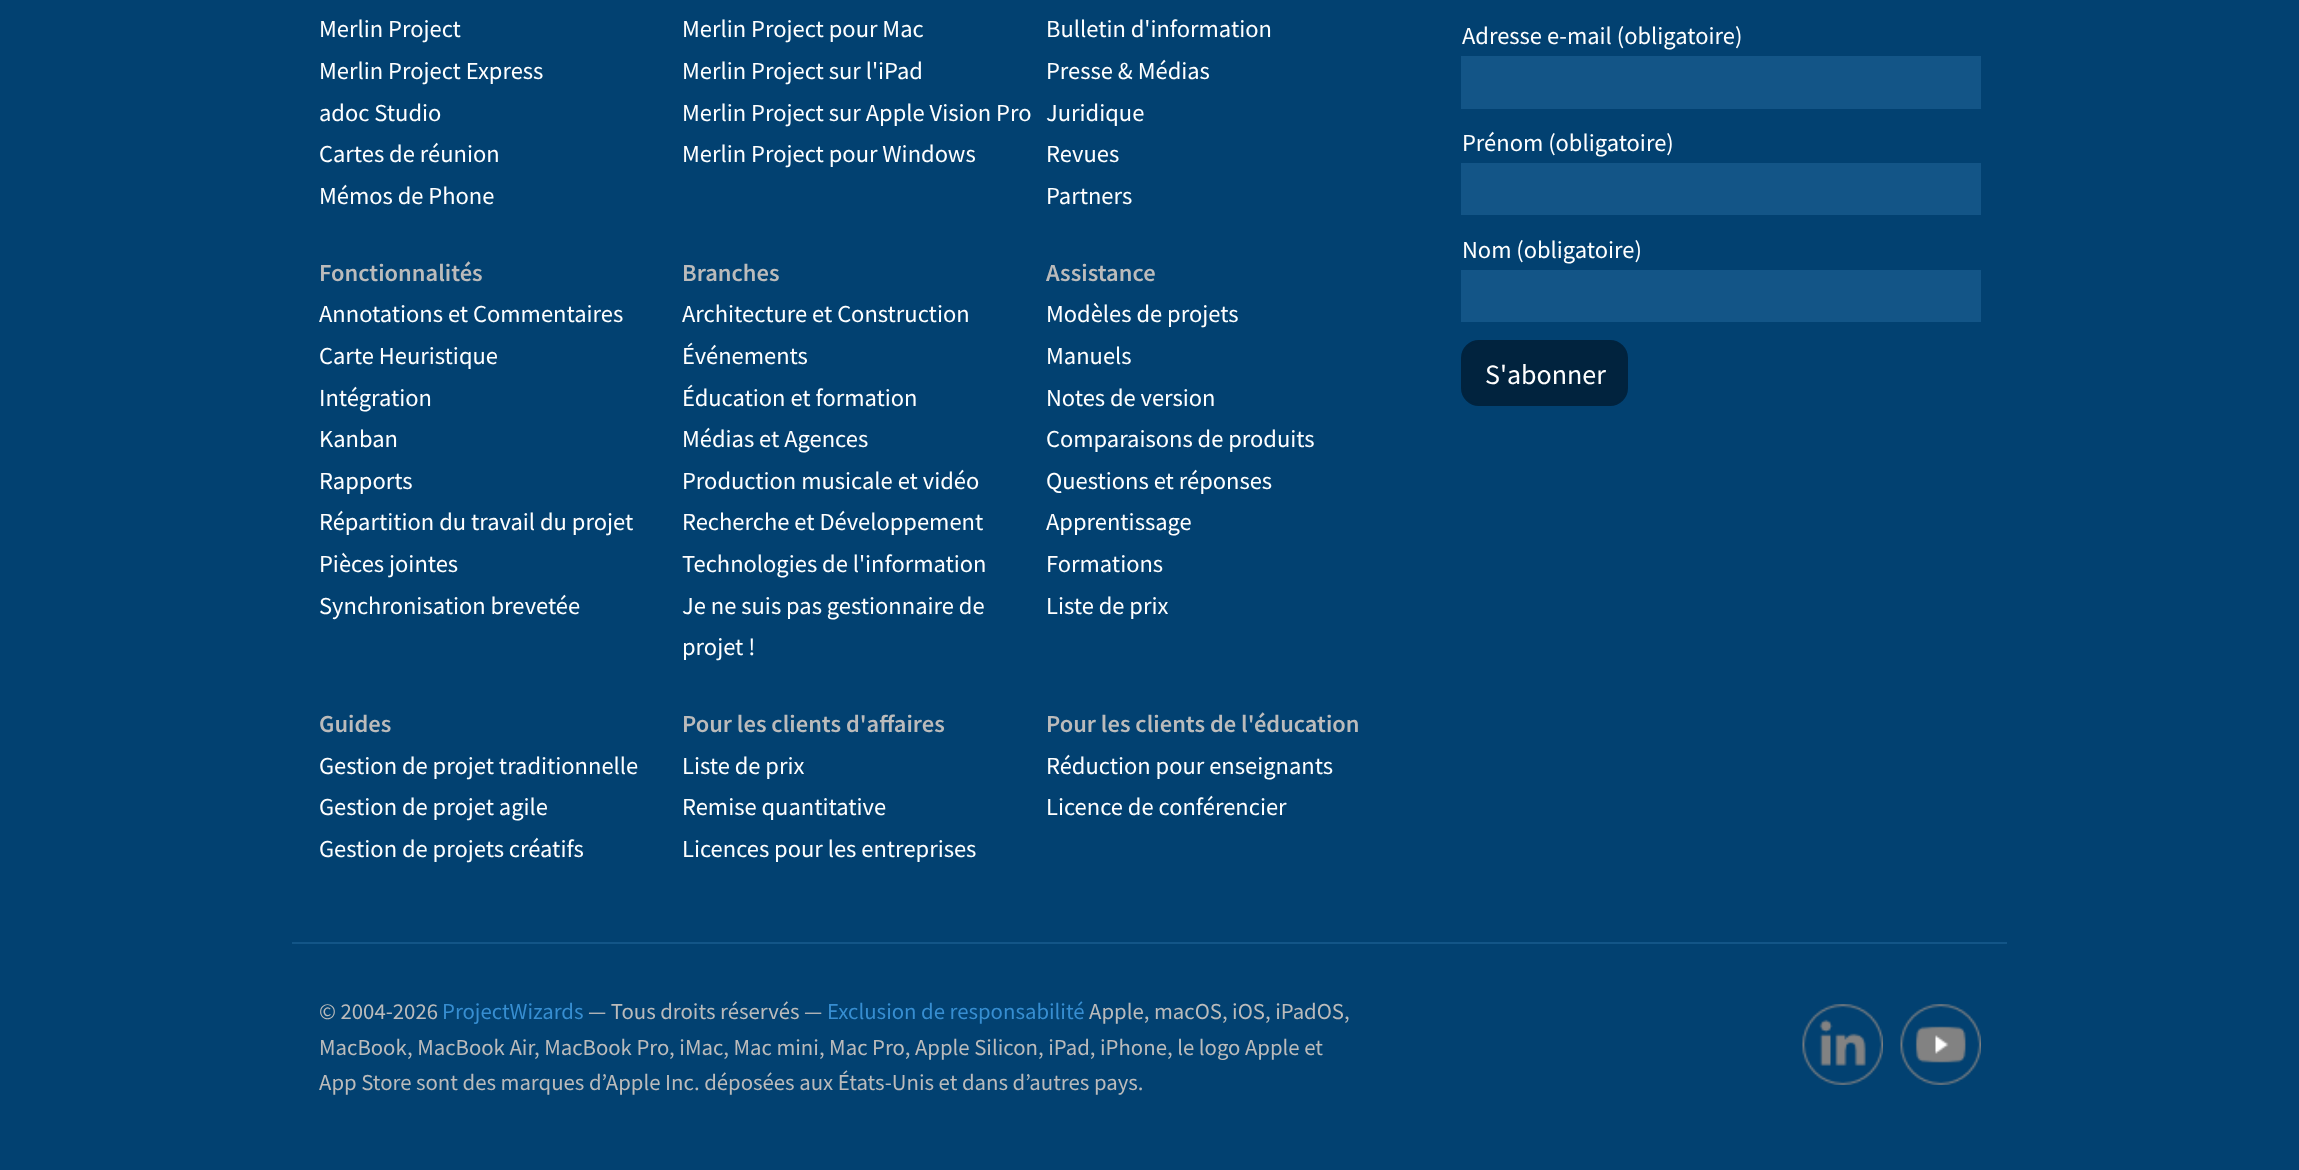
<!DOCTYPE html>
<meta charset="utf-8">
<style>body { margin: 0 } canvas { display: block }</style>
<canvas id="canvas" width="2299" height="1170"></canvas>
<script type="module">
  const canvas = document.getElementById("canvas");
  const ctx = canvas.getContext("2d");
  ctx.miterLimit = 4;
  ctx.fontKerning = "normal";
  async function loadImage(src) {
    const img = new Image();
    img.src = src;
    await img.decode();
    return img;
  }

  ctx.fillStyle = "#024171";
  ctx.fillRect(0, 0, 2299, 1170);
  ctx.fillStyle = "#135587";
  ctx.fillRect(292, 942, 1715, 2);
  ctx.font = "24.5px Source Sans Pro";
  ctx.fillStyle = "#ffffff";
  ctx.fillText("Merlin Project", 319, 37);
  ctx.fillText("Merlin Project Express", 319, 79);
  ctx.fillText("adoc Studio", 319, 121);
  ctx.fillText("Cartes de réunion", 319, 162);
  ctx.fillText("Mémos de Phone", 319, 204);
  ctx.fillText("Merlin Project pour Mac", 682, 37);
  ctx.fillText("Merlin Project sur l'iPad", 682, 79);
  ctx.fillText("Merlin Project sur Apple Vision Pro", 682, 121);
  ctx.fillText("Merlin Project pour Windows", 682, 162);
  ctx.fillText("Bulletin d'information", 1046, 37);
  ctx.fillText("Presse & Médias", 1046, 79);
  ctx.fillText("Juridique", 1046, 121);
  ctx.fillText("Revues", 1046, 162);
  ctx.fillText("Partners", 1046, 204);
  ctx.font = "600 24.5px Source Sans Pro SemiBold";
  ctx.fillStyle = "#bbbbbb";
  ctx.fillText("Fonctionnalités", 319, 281);
  ctx.font = "24.5px Source Sans Pro";
  ctx.fillStyle = "#ffffff";
  ctx.fillText("Annotations et Commentaires", 319, 322);
  ctx.fillText("Carte Heuristique", 319, 364);
  ctx.fillText("Intégration", 319, 406);
  ctx.fillText("Kanban", 319, 447);
  ctx.fillText("Rapports", 319, 489);
  ctx.fillText("Répartition du travail du projet", 319, 530);
  ctx.fillText("Pièces jointes", 319, 572);
  ctx.fillText("Synchronisation brevetée", 319, 614);
  ctx.font = "600 24.5px Source Sans Pro SemiBold";
  ctx.fillStyle = "#bbbbbb";
  ctx.fillText("Branches", 682, 281);
  ctx.font = "24.5px Source Sans Pro";
  ctx.fillStyle = "#ffffff";
  ctx.fillText("Architecture et Construction", 682, 322);
  ctx.fillText("Événements", 682, 364);
  ctx.fillText("Éducation et formation", 682, 406);
  ctx.fillText("Médias et Agences", 682, 447);
  ctx.fillText("Production musicale et vidéo", 682, 489);
  ctx.fillText("Recherche et Développement", 682, 530);
  ctx.fillText("Technologies de l'information", 682, 572);
  ctx.fillText("Je ne suis pas gestionnaire de", 682, 614);
  ctx.fillText("projet !", 682, 655);
  ctx.font = "600 24.5px Source Sans Pro SemiBold";
  ctx.fillStyle = "#bbbbbb";
  ctx.fillText("Assistance", 1046, 281);
  ctx.font = "24.5px Source Sans Pro";
  ctx.fillStyle = "#ffffff";
  ctx.fillText("Modèles de projets", 1046, 322);
  ctx.fillText("Manuels", 1046, 364);
  ctx.fillText("Notes de version", 1046, 406);
  ctx.fillText("Comparaisons de produits", 1046, 447);
  ctx.fillText("Questions et réponses", 1046, 489);
  ctx.fillText("Apprentissage", 1046, 530);
  ctx.fillText("Formations", 1046, 572);
  ctx.fillText("Liste de prix", 1046, 614);
  ctx.font = "600 24.5px Source Sans Pro SemiBold";
  ctx.fillStyle = "#bbbbbb";
  ctx.fillText("Guides", 319, 732);
  ctx.font = "24.5px Source Sans Pro";
  ctx.fillStyle = "#ffffff";
  ctx.fillText("Gestion de projet traditionnelle", 319, 774);
  ctx.fillText("Gestion de projet agile", 319, 815);
  ctx.fillText("Gestion de projets créatifs", 319, 857);
  ctx.font = "600 24.5px Source Sans Pro SemiBold";
  ctx.fillStyle = "#bbbbbb";
  ctx.fillText("Pour les clients d'affaires", 682, 732);
  ctx.font = "24.5px Source Sans Pro";
  ctx.fillStyle = "#ffffff";
  ctx.fillText("Liste de prix", 682, 774);
  ctx.fillText("Remise quantitative", 682, 815);
  ctx.fillText("Licences pour les entreprises", 682, 857);
  ctx.font = "600 24.5px Source Sans Pro SemiBold";
  ctx.fillStyle = "#bbbbbb";
  ctx.fillText("Pour les clients de l'éducation", 1046, 732);
  ctx.font = "24.5px Source Sans Pro";
  ctx.fillStyle = "#ffffff";
  ctx.fillText("Réduction pour enseignants", 1046, 774);
  ctx.fillText("Licence de conférencier", 1046, 815);
  ctx.fillText("Adresse e-mail (obligatoire)", 1462, 44);
  ctx.fillStyle = "#135587";
  ctx.fillRect(1461, 56, 520, 53);
  ctx.fillStyle = "#ffffff";
  ctx.fillText("Prénom (obligatoire)", 1462, 151);
  ctx.fillStyle = "#135587";
  ctx.fillRect(1461, 163, 520, 52);
  ctx.fillStyle = "#ffffff";
  ctx.fillText("Nom (obligatoire)", 1462, 258);
  ctx.fillStyle = "#135587";
  ctx.fillRect(1461, 270, 520, 52);
  ctx.fillStyle = "#01233e";
  ctx.beginPath();
  ctx.roundRect(1462, 341, 165, 64, 17);
  ctx.fill();
  ctx.strokeStyle = "#01233e";
  ctx.lineWidth = 2;
  ctx.stroke();
  ctx.font = "28px Source Sans Pro";
  ctx.fillStyle = "#ffffff";
  ctx.fillText("S'abonner", 1485, 384);
  ctx.font = "22.75px Source Sans Pro";
  ctx.fillStyle = "#bbbbbb";
  ctx.fillText("© 2004-2026", 319, 1019);
  ctx.fillStyle = "#378ed1";
  ctx.fillText("ProjectWizards", 442, 1019);
  ctx.fillStyle = "#bbbbbb";
  ctx.fillText("— Tous droits réservés —", 588, 1019);
  ctx.fillStyle = "#378ed1";
  ctx.fillText("Exclusion de responsabilité", 827, 1019);
  ctx.fillStyle = "#bbbbbb";
  ctx.fillText("Apple, macOS, iOS, iPadOS,", 1089, 1019);
  ctx.fillText("MacBook, MacBook Air, MacBook Pro, iMac, Mac mini, Mac Pro, Apple Silicon, iPad, iPhone, le logo Apple et", 319, 1055);
  ctx.fillText("App Store sont des marques d’Apple Inc. déposées aux États-Unis et dans d’autres pays.", 319, 1090);
  ctx.drawImage(await loadImage("img1.png"), 1802, 1004, 81, 81);
  ctx.drawImage(await loadImage("img2.png"), 1900, 1004, 81, 81);
</script>
